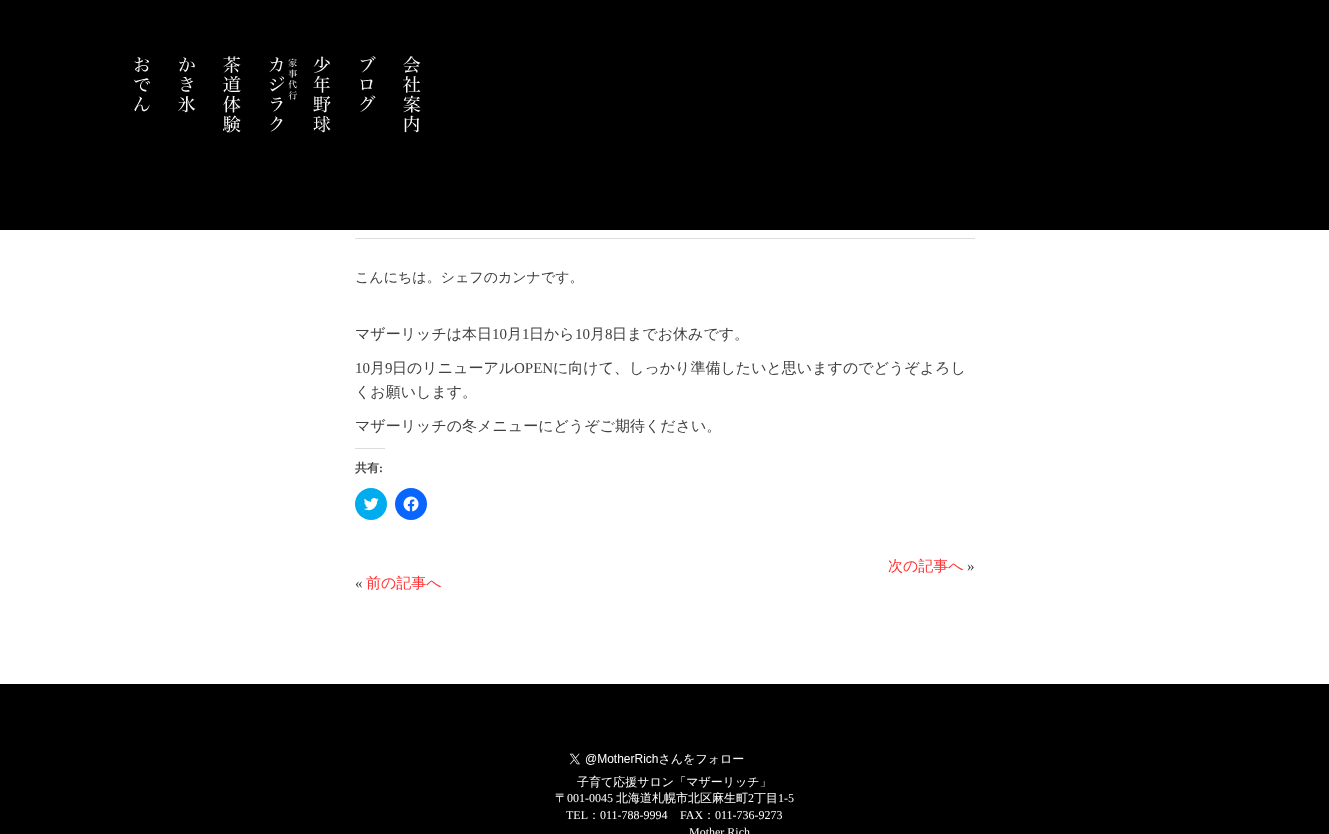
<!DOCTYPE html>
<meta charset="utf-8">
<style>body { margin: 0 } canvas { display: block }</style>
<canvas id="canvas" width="1329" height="834"></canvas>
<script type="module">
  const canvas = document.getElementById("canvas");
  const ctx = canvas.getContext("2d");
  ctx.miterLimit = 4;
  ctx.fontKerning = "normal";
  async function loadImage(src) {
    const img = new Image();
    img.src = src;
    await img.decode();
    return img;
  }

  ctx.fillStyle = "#000000";
  ctx.fillRect(0, 0, 1329, 834);
  ctx.drawImage(await loadImage("img1.png"), 134, 57, 16, 55);
  ctx.drawImage(await loadImage("img2.png"), 178, 57, 18, 56);
  ctx.drawImage(await loadImage("img3.png"), 223, 56, 18, 77);
  ctx.drawImage(await loadImage("img4.png"), 269, 57, 28, 75);
  ctx.drawImage(await loadImage("img5.png"), 313, 56, 18, 77);
  ctx.drawImage(await loadImage("img6.png"), 360, 56, 16, 56);
  ctx.drawImage(await loadImage("img7.png"), 403, 56, 18, 77);
  ctx.fillStyle = "#ffffff";
  ctx.fillRect(0, 230, 1329, 454);
  ctx.fillStyle = "#dddddd";
  ctx.fillRect(355, 238, 620, 1);
  ctx.font = "500 14px WenQuanYi Zen Hei";
  ctx.fillStyle = "#404040";
  ctx.fillText("こんにちは。シェフのカンナです。", 355, 282);
  ctx.font = "500 15px WenQuanYi Zen Hei";
  ctx.fillText("マザーリッチは本日", 355, 339);
  ctx.font = "15px Liberation Serif";
  ctx.fillText("10", 492, 339);
  ctx.font = "500 15px WenQuanYi Zen Hei";
  ctx.fillText("月", 507, 339);
  ctx.font = "15px Liberation Serif";
  ctx.fillText("1", 522, 339);
  ctx.font = "500 15px WenQuanYi Zen Hei";
  ctx.fillText("日から", 529, 339);
  ctx.font = "15px Liberation Serif";
  ctx.fillText("10", 575, 339);
  ctx.font = "500 15px WenQuanYi Zen Hei";
  ctx.fillText("月", 590, 339);
  ctx.font = "15px Liberation Serif";
  ctx.fillText("8", 605, 339);
  ctx.font = "500 15px WenQuanYi Zen Hei";
  ctx.fillText("日までお休みです。", 612, 339);
  ctx.font = "15px Liberation Serif";
  ctx.fillText("10", 355, 373);
  ctx.font = "500 15px WenQuanYi Zen Hei";
  ctx.fillText("月", 370, 373);
  ctx.font = "15px Liberation Serif";
  ctx.fillText("9", 385, 373);
  ctx.font = "500 15px WenQuanYi Zen Hei";
  ctx.fillText("日のリニューアル", 392, 373);
  ctx.font = "15px Liberation Serif";
  ctx.fillText("OPEN", 514, 373);
  ctx.font = "500 15px WenQuanYi Zen Hei";
  ctx.fillText("に向けて、しっかり準備したいと思いますのでどうぞよろし", 553, 373);
  ctx.fillText("くお願いします。", 355, 397);
  ctx.fillText("マザーリッチの冬メニューにどうぞご期待ください。", 355, 431);
  ctx.fillStyle = "#dcdcde";
  ctx.fillRect(355, 448, 30, 1);
  ctx.font = "bold 12px WenQuanYi Zen Hei";
  ctx.fillStyle = "#404040";
  ctx.fillText("共有", 355, 472);
  ctx.font = "bold 12px Liberation Serif";
  ctx.fillText(":", 379, 472);
  ctx.fillStyle = "#00acee";
  ctx.beginPath();
  ctx.arc(371, 504, 16, 0, Math.PI * 2);
  ctx.fill();
  ctx.drawImage(await loadImage("img8.png"), 363, 498, 16, 13);
  ctx.fillStyle = "#0866ff";
  ctx.beginPath();
  ctx.arc(411, 504, 16, 0, Math.PI * 2);
  ctx.fill();
  ctx.drawImage(await loadImage("img9.png"), 403, 496, 16, 16);
  ctx.font = "500 15px WenQuanYi Zen Hei";
  ctx.fillStyle = "#ff3333";
  ctx.fillText("次の記事へ", 888, 571);
  ctx.font = "15px Liberation Serif";
  ctx.fillStyle = "#404040";
  ctx.fillText("»", 967, 571);
  ctx.fillText("«", 355, 588);
  ctx.font = "500 15px WenQuanYi Zen Hei";
  ctx.fillStyle = "#ff3333";
  ctx.fillText("前の記事へ", 366, 588);
  ctx.drawImage(await loadImage("img10.png"), 569, 753, 175, 12);
  ctx.font = "500 12px WenQuanYi Zen Hei";
  ctx.fillStyle = "#ffffff";
  ctx.fillText("子育て応援サロン「マザーリッチ」", 577, 786);
  ctx.fillText("〒", 555, 802);
  ctx.font = "12px Liberation Serif";
  ctx.fillText("001-0045", 567, 802);
  ctx.font = "500 12px WenQuanYi Zen Hei";
  ctx.fillText("北海道札幌市北区麻生町", 616, 802);
  ctx.font = "12px Liberation Serif";
  ctx.fillText("2", 748, 802);
  ctx.font = "500 12px WenQuanYi Zen Hei";
  ctx.fillText("丁目", 754, 802);
  ctx.font = "12px Liberation Serif";
  ctx.fillText("1-5", 778, 802);
  ctx.fillText("TEL", 566, 819);
  ctx.font = "500 12px WenQuanYi Zen Hei";
  ctx.fillText("：", 588, 819);
  ctx.font = "12px Liberation Serif";
  ctx.fillText("011-788-9994", 600, 819);
  ctx.fillText("FAX", 680, 819);
  ctx.font = "500 12px WenQuanYi Zen Hei";
  ctx.fillText("：", 703, 819);
  ctx.font = "12px Liberation Serif";
  ctx.fillText("011-736-9273", 715, 819);
  ctx.fillText("Mother Rich", 689, 836);
</script>
